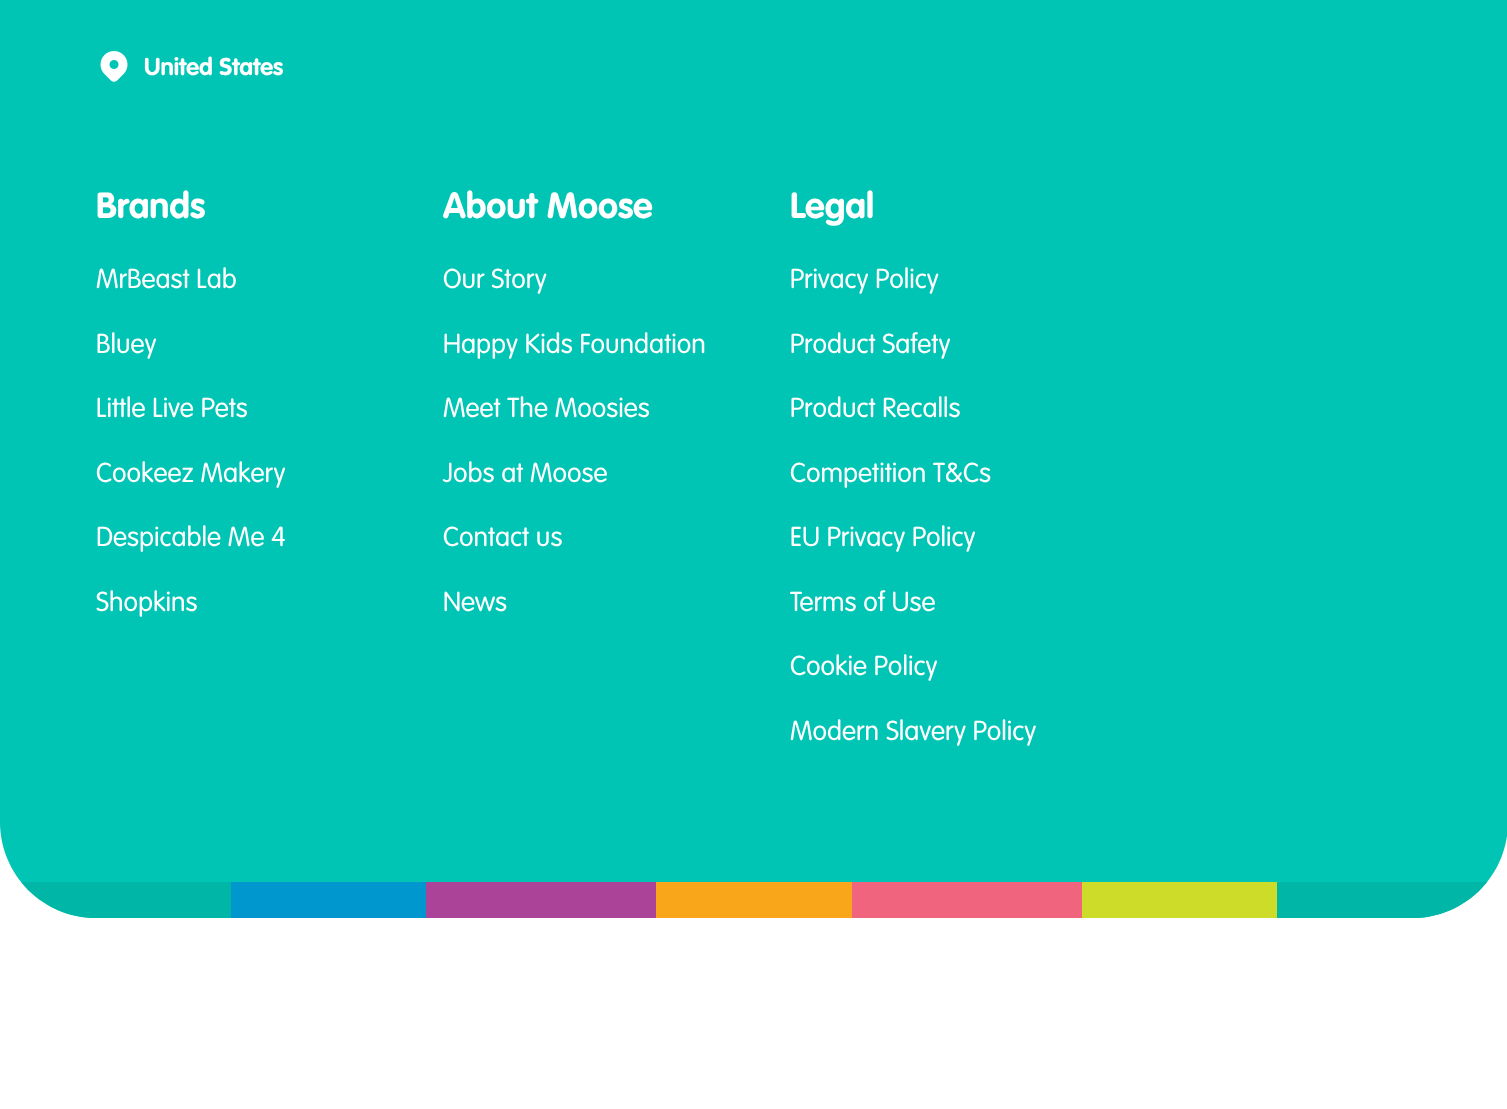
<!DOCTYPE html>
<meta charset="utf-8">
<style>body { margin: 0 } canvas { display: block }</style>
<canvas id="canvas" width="1507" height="1109"></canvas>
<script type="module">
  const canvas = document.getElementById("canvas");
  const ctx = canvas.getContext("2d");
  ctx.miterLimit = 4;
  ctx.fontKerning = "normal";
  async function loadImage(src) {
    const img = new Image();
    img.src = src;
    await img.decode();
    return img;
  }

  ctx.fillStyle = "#ffffff";
  ctx.fillRect(0, 0, 1507, 1109);
  ctx.fillStyle = "#00c4b4";
  ctx.beginPath();
  ctx.moveTo(0, -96);
  ctx.lineTo(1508, -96);
  ctx.lineTo(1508, 822);
  ctx.bezierCurveTo(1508, 875, 1465, 918, 1412, 918);
  ctx.lineTo(96, 918);
  ctx.bezierCurveTo(43, 918, 0, 875, 0, 822);
  ctx.closePath();
  ctx.fill();
  ctx.drawImage(await loadImage("img1.png"), 100, 51, 28, 31);
  ctx.font = "bold 24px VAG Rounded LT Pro";
  ctx.fillStyle = "#ffffff";
  ctx.fillText("United States", 144, 75);
  ctx.font = "bold 36px VAG Rounded LT Pro";
  ctx.fillText("Brands", 96, 218);
  ctx.font = "300 27px VAG Rounded LT Pro";
  ctx.fillText("MrBeast Lab", 96, 288);
  ctx.fillText("Bluey", 96, 353);
  ctx.fillText("Little Live Pets", 96, 417);
  ctx.fillText("Cookeez Makery", 96, 482);
  ctx.fillText("Despicable Me 4", 96, 546);
  ctx.fillText("Shopkins", 96, 611);
  ctx.font = "bold 36px VAG Rounded LT Pro";
  ctx.fillText("About Moose", 443, 218);
  ctx.font = "300 27px VAG Rounded LT Pro";
  ctx.fillText("Our Story", 443, 288);
  ctx.fillText("Happy Kids Foundation", 443, 353);
  ctx.fillText("Meet The Moosies", 443, 417);
  ctx.fillText("Jobs at Moose", 443, 482);
  ctx.fillText("Contact us", 443, 546);
  ctx.fillText("News", 443, 611);
  ctx.font = "bold 36px VAG Rounded LT Pro";
  ctx.fillText("Legal", 790, 218);
  ctx.font = "300 27px VAG Rounded LT Pro";
  ctx.fillText("Privacy Policy", 790, 288);
  ctx.fillText("Product Safety", 790, 353);
  ctx.fillText("Product Recalls", 790, 417);
  ctx.fillText("Competition T&Cs", 790, 482);
  ctx.fillText("EU Privacy Policy", 790, 546);
  ctx.fillText("Terms of Use", 790, 611);
  ctx.fillText("Cookie Policy", 790, 675);
  ctx.fillText("Modern Slavery Policy", 790, 740);
  ctx.save();
  ctx.beginPath();
  ctx.moveTo(0, -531);
  ctx.lineTo(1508, -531);
  ctx.lineTo(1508, 822);
  ctx.bezierCurveTo(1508, 875, 1465, 918, 1412, 918);
  ctx.lineTo(96, 918);
  ctx.bezierCurveTo(43, 918, 0, 875, 0, 822);
  ctx.closePath();
  ctx.clip();
  ctx.fillStyle = "#00b6a7";
  ctx.fillRect(21, 882, 210, 36);
  ctx.restore();
  ctx.fillStyle = "#0097cf";
  ctx.fillRect(231, 882, 195, 36);
  ctx.fillStyle = "#ab4399";
  ctx.fillRect(426, 882, 230, 36);
  ctx.fillStyle = "#faa61a";
  ctx.fillRect(656, 882, 196, 36);
  ctx.fillStyle = "#f1647d";
  ctx.fillRect(852, 882, 230, 36);
  ctx.fillStyle = "#cddc29";
  ctx.fillRect(1082, 882, 195, 36);
  ctx.save();
  ctx.beginPath();
  ctx.moveTo(0, -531);
  ctx.lineTo(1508, -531);
  ctx.lineTo(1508, 822);
  ctx.bezierCurveTo(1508, 875, 1465, 918, 1412, 918);
  ctx.lineTo(96, 918);
  ctx.bezierCurveTo(43, 918, 0, 875, 0, 822);
  ctx.closePath();
  ctx.clip();
  ctx.fillStyle = "#00b6a7";
  ctx.fillRect(1277, 882, 210, 36);
  ctx.restore();
</script>
